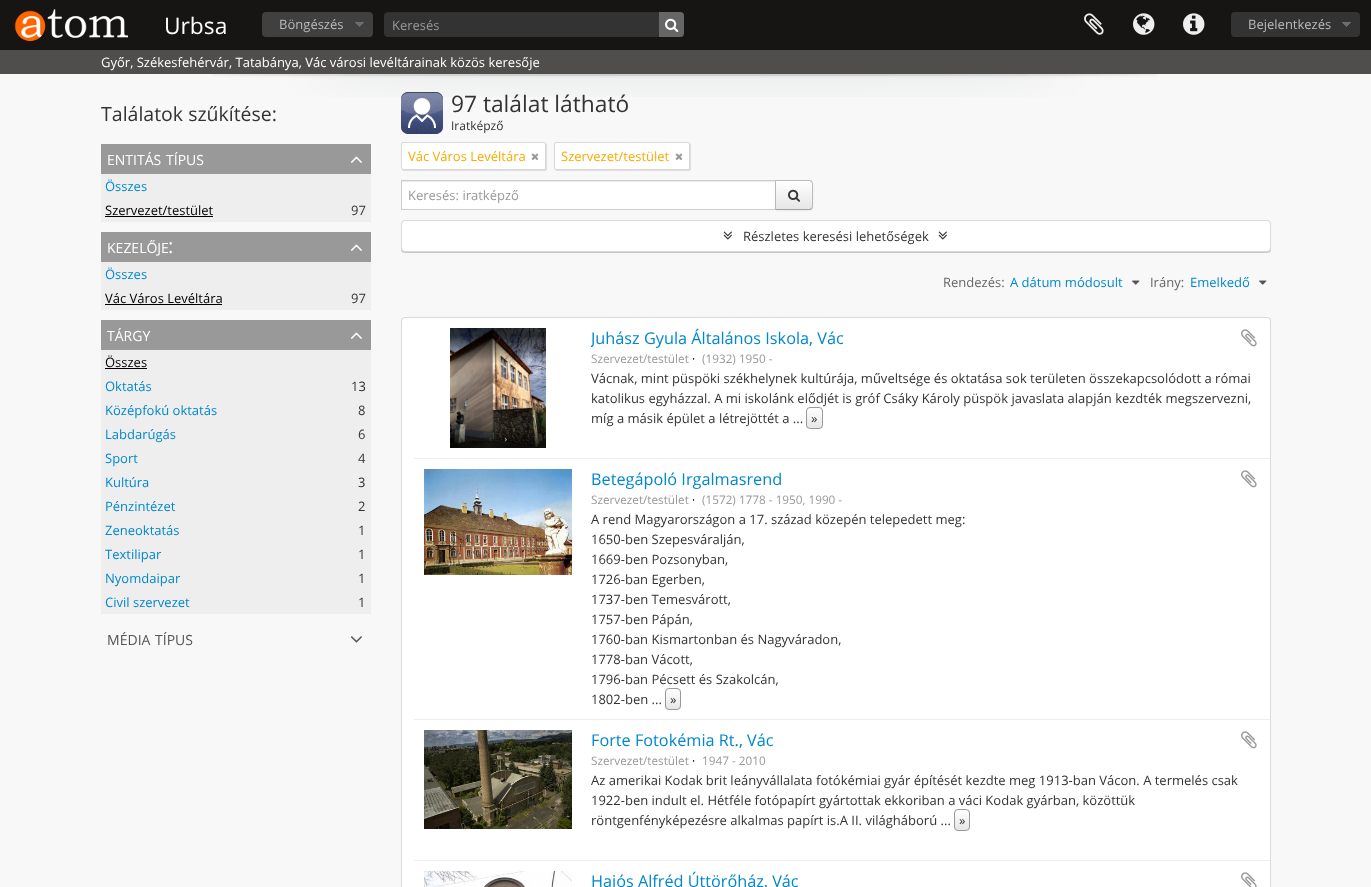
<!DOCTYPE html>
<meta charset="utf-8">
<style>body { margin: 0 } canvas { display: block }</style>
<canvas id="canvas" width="1371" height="887"></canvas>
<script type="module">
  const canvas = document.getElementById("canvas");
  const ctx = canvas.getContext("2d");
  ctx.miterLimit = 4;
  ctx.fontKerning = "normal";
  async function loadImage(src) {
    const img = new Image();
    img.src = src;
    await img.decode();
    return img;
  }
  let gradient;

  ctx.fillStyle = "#f8f8f8";
  ctx.fillRect(0, 0, 1371, 887);
  ctx.fillStyle = "#161514";
  ctx.fillRect(0, 0, 1371, 50);
  ctx.drawImage(await loadImage("img1.png"), 14, 9, 114, 32);
  ctx.font = "22.75px Open Sans";
  ctx.fillStyle = "#ffffff";
  ctx.fillText("Urbsa", 164, 34);
  ctx.fillStyle = "#404040";
  ctx.beginPath();
  ctx.roundRect(262, 12, 111, 25, 4);
  ctx.fill();
  ctx.drawImage(await loadImage("img2.png"), 355, 22, 9, 5);
  ctx.font = "13px Open Sans";
  ctx.fillStyle = "#bbbbbb";
  ctx.fillText("Böngészés", 279, 29);
  ctx.fillStyle = "#333333";
  ctx.beginPath();
  ctx.roundRect(384, 12, 300, 25, 4);
  ctx.fill();
  ctx.fillStyle = "rgba(0, 0, 0, 0.07)";
  ctx.beginPath();
  ctx.moveTo(388, 13);
  ctx.lineTo(682, 13);
  ctx.bezierCurveTo(683, 13, 684, 14, 684, 16);
  ctx.bezierCurveTo(684, 14, 682, 12, 680, 12);
  ctx.lineTo(388, 12);
  ctx.bezierCurveTo(385, 12, 384, 14, 384, 16);
  ctx.bezierCurveTo(384, 14, 386, 13, 388, 13);
  ctx.closePath();
  ctx.fill();
  ctx.fillStyle = "#999999";
  ctx.fillText("Keresés", 392, 30);
  ctx.fillStyle = "#666666";
  ctx.beginPath();
  ctx.roundRect(659, 12, 25, 25, [0, 4, 4, 0]);
  ctx.fill();
  ctx.drawImage(await loadImage("img3.png"), 665, 18, 14, 14);
  ctx.drawImage(await loadImage("img4.png"), 1084, 13, 20, 22);
  ctx.drawImage(await loadImage("img5.png"), 1133, 13, 22, 22);
  ctx.drawImage(await loadImage("img6.png"), 1183, 13, 22, 22);
  ctx.fillStyle = "#333333";
  ctx.beginPath();
  ctx.roundRect(1231, 12, 129, 25, 4);
  ctx.fill();
  ctx.drawImage(await loadImage("img7.png"), 1342, 22, 9, 5);
  ctx.fillStyle = "#bbbbbb";
  ctx.fillText("Bejelentkezés", 1248, 29);
  ctx.fillStyle = "#4f4e4d";
  ctx.fillRect(0, 50, 1371, 24);
  ctx.fillStyle = "#ffffff";
  ctx.fillText("Győr, Székesfehérvár, Tatabánya, Vác városi levéltárainak közös keresője", 101, 67);
  ctx.drawImage(await loadImage("img8.png"), 212, 74, 946, 23);
  ctx.font = "19.5px Open Sans";
  ctx.fillStyle = "#333333";
  ctx.fillText("Találatok szűkítése:", 101, 121);
  ctx.fillStyle = "#999999";
  ctx.fillRect(101, 144, 270, 30);
  ctx.font = "14px Open Sans";
  ctx.fillStyle = "#ffffff";
  ctx.fillText("ENTITÁS", 107, 165);
  ctx.fillText("TÍPUS", 166, 165);
  ctx.drawImage(await loadImage("img9.png"), 351, 156, 11, 7);
  ctx.fillStyle = "#eeeeee";
  ctx.fillRect(101, 174, 270, 48);
  ctx.font = "13px Open Sans";
  ctx.fillStyle = "#0088cc";
  ctx.fillText("Összes", 105, 191);
  ctx.fillStyle = "#000000";
  ctx.fillText("Szervezet/testület", 105, 215);
  ctx.fillRect(105, 216, 108, 1);
  ctx.fillStyle = "#333333";
  ctx.fillText("97", 351, 215);
  ctx.fillStyle = "#999999";
  ctx.fillRect(101, 232, 270, 30);
  ctx.font = "14px Open Sans";
  ctx.fillStyle = "#ffffff";
  ctx.fillText("KEZELŐJE", 107, 253);
  ctx.font = "20px Open Sans";
  ctx.fillText(":", 168, 253);
  ctx.drawImage(await loadImage("img9.png"), 351, 244, 11, 7);
  ctx.fillStyle = "#eeeeee";
  ctx.fillRect(101, 262, 270, 48);
  ctx.font = "13px Open Sans";
  ctx.fillStyle = "#0088cc";
  ctx.fillText("Összes", 105, 279);
  ctx.fillStyle = "#000000";
  ctx.fillText("Vác Város Levéltára", 105, 303);
  ctx.fillRect(105, 304, 117, 1);
  ctx.fillStyle = "#333333";
  ctx.fillText("97", 351, 303);
  ctx.fillStyle = "#999999";
  ctx.fillRect(101, 320, 270, 30);
  ctx.font = "14px Open Sans";
  ctx.fillStyle = "#ffffff";
  ctx.fillText("TÁRGY", 107, 341);
  ctx.drawImage(await loadImage("img9.png"), 351, 332, 11, 7);
  ctx.fillStyle = "#eeeeee";
  ctx.fillRect(101, 350, 270, 264);
  ctx.font = "13px Open Sans";
  ctx.fillStyle = "#000000";
  ctx.fillText("Összes", 105, 367);
  ctx.fillRect(105, 368, 42, 1);
  ctx.fillStyle = "#0088cc";
  ctx.fillText("Oktatás", 105, 391);
  ctx.fillStyle = "#333333";
  ctx.fillText("13", 351, 391);
  ctx.fillStyle = "#0088cc";
  ctx.fillText("Középfokú oktatás", 105, 415);
  ctx.fillStyle = "#333333";
  ctx.fillText("8", 358, 415);
  ctx.fillStyle = "#0088cc";
  ctx.fillText("Labdarúgás", 105, 439);
  ctx.fillStyle = "#333333";
  ctx.fillText("6", 358, 439);
  ctx.fillStyle = "#0088cc";
  ctx.fillText("Sport", 105, 463);
  ctx.fillStyle = "#333333";
  ctx.fillText("4", 358, 463);
  ctx.fillStyle = "#0088cc";
  ctx.fillText("Kultúra", 105, 487);
  ctx.fillStyle = "#333333";
  ctx.fillText("3", 358, 487);
  ctx.fillStyle = "#0088cc";
  ctx.fillText("Pénzintézet", 105, 511);
  ctx.fillStyle = "#333333";
  ctx.fillText("2", 358, 511);
  ctx.fillStyle = "#0088cc";
  ctx.fillText("Zeneoktatás", 105, 535);
  ctx.fillStyle = "#333333";
  ctx.fillText("1", 358, 535);
  ctx.fillStyle = "#0088cc";
  ctx.fillText("Textilipar", 105, 559);
  ctx.fillStyle = "#333333";
  ctx.fillText("1", 358, 559);
  ctx.fillStyle = "#0088cc";
  ctx.fillText("Nyomdaipar", 105, 583);
  ctx.fillStyle = "#333333";
  ctx.fillText("1", 358, 583);
  ctx.fillStyle = "#0088cc";
  ctx.fillText("Civil szervezet", 105, 607);
  ctx.fillStyle = "#333333";
  ctx.fillText("1", 358, 607);
  ctx.font = "14px Open Sans";
  ctx.fillStyle = "#555555";
  ctx.fillText("MÉDIA", 107, 645);
  ctx.fillText("TÍPUS", 155, 645);
  ctx.drawImage(await loadImage("img10.png"), 350, 636, 12, 7);
  ctx.drawImage(await loadImage("img11.png"), 401, 92, 42, 42);
  ctx.font = "22.75px Open Sans";
  ctx.fillStyle = "#333333";
  ctx.fillText("97 találat látható", 451, 112);
  ctx.font = "12px Open Sans";
  ctx.fillText("Iratképző", 451, 130);
  ctx.fillStyle = "rgba(0, 0, 0, 0.1)";
  ctx.filter = "blur(0.5px)";
  ctx.beginPath();
  ctx.roundRect(402, 143, 145, 28, 2);
  ctx.fill();
  ctx.filter = "none";
  ctx.fillStyle = "#ffffff";
  ctx.beginPath();
  ctx.roundRect(401.5, 142.5, 144, 27, 1.5);
  ctx.fill();
  ctx.strokeStyle = "#d9d9d9";
  ctx.stroke();
  ctx.font = "13px Open Sans";
  ctx.fillStyle = "#f6ac00";
  ctx.fillText("Vác Város Levéltára", 408, 161);
  ctx.drawImage(await loadImage("img12.png"), 531, 153, 8, 7);
  ctx.fillStyle = "rgba(0, 0, 0, 0.1)";
  ctx.filter = "blur(0.5px)";
  ctx.beginPath();
  ctx.roundRect(555, 143, 136, 28, 2);
  ctx.fill();
  ctx.filter = "none";
  ctx.fillStyle = "#ffffff";
  ctx.beginPath();
  ctx.roundRect(554.5, 142.5, 135, 27, 1.5);
  ctx.fill();
  ctx.stroke();
  ctx.fillStyle = "#f6ac00";
  ctx.fillText("Szervezet/testület", 561, 161);
  ctx.drawImage(await loadImage("img12.png"), 675, 153, 8, 7);
  ctx.fillStyle = "#ffffff";
  ctx.fillRect(402, 182, 373, 27);
  ctx.fillStyle = "#ececec";
  ctx.fillRect(402, 181, 374, 1);
  ctx.strokeStyle = "#cccccc";
  ctx.strokeRect(401.5, 180.5, 375, 29);
  ctx.fillStyle = "#999999";
  ctx.fillText("Keresés: iratképző", 408, 200);
  ctx.fillStyle = "rgba(0, 0, 0, 0.05)";
  ctx.filter = "blur(1px)";
  ctx.beginPath();
  ctx.roundRect(775, 181, 38, 30, 4);
  ctx.fill();
  ctx.filter = "none";
  ctx.save();
  ctx.beginPath();
  ctx.roundRect(775, 180, 38, 30, [0, 4, 4, 0]);
  ctx.clip();
  gradient = ctx.createLinearGradient(794, 181, 794, 209);
  gradient.addColorStop(0, "#ffffff");
  gradient.addColorStop(1, "#e6e6e6");
  ctx.fillStyle = gradient;
  ctx.fillRect(776, 181, 37, 28);
  ctx.restore();
  ctx.fillStyle = "#bbbbbb";
  ctx.beginPath();
  ctx.moveTo(775, 180);
  ctx.lineTo(776, 181);
  ctx.lineTo(809, 181);
  ctx.bezierCurveTo(810, 181, 810.5, 181.5, 811, 182);
  ctx.lineTo(812, 181);
  ctx.bezierCurveTo(811, 180.5, 810, 180, 809, 180);
  ctx.closePath();
  ctx.fill();
  ctx.beginPath();
  ctx.moveTo(813, 206);
  ctx.lineTo(813, 184);
  ctx.bezierCurveTo(813, 183, 812.5, 182, 812, 181);
  ctx.lineTo(811, 182);
  ctx.bezierCurveTo(811.5, 182.5, 812, 183, 812, 184);
  ctx.lineTo(812, 206);
  ctx.bezierCurveTo(812, 207, 811.5, 207.5, 811, 208);
  ctx.lineTo(812, 209);
  ctx.bezierCurveTo(812.5, 208, 813, 207, 813, 206);
  ctx.closePath();
  ctx.fill();
  ctx.fillStyle = "#a2a2a2";
  ctx.beginPath();
  ctx.moveTo(809, 210);
  ctx.bezierCurveTo(810, 210, 811, 209.5, 812, 209);
  ctx.lineTo(811, 208);
  ctx.bezierCurveTo(810.5, 208.5, 810, 209, 809, 209);
  ctx.lineTo(776, 209);
  ctx.lineTo(775, 210);
  ctx.closePath();
  ctx.fill();
  ctx.fillStyle = "#bbbbbb";
  ctx.beginPath();
  ctx.moveTo(775, 180);
  ctx.lineTo(775, 210);
  ctx.lineTo(776, 209);
  ctx.lineTo(776, 181);
  ctx.closePath();
  ctx.fill();
  ctx.drawImage(await loadImage("img13.png"), 788, 189, 12, 13);
  ctx.fillStyle = "rgba(0, 0, 0, 0.2)";
  ctx.filter = "blur(0.5px)";
  ctx.beginPath();
  ctx.roundRect(401, 221, 870, 32, 4);
  ctx.fill();
  ctx.filter = "none";
  ctx.fillStyle = "#ffffff";
  ctx.beginPath();
  ctx.roundRect(401.5, 220.5, 869, 31, 3.5);
  ctx.fill();
  ctx.strokeStyle = "#d9d9d9";
  ctx.stroke();
  ctx.drawImage(await loadImage("img14.png"), 723, 231, 9, 9);
  ctx.fillStyle = "#333333";
  ctx.fillText("Részletes keresési lehetőségek", 743, 241);
  ctx.drawImage(await loadImage("img14.png"), 938, 231, 9, 9);
  ctx.fillStyle = "#666666";
  ctx.fillText("Rendezés:", 943, 287);
  ctx.fillStyle = "#0088cc";
  ctx.fillText("A dátum módosult", 1010, 287);
  ctx.drawImage(await loadImage("img15.png"), 1132, 280, 8, 5);
  ctx.fillStyle = "#666666";
  ctx.fillText("Irány:", 1150, 287);
  ctx.fillStyle = "#0088cc";
  ctx.fillText("Emelkedő", 1190, 287);
  ctx.drawImage(await loadImage("img15.png"), 1259, 280, 8, 5);
  ctx.fillStyle = "rgba(0, 0, 0, 0.2)";
  ctx.filter = "blur(0.5px)";
  ctx.beginPath();
  ctx.roundRect(401, 318, 870, 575, 4);
  ctx.fill();
  ctx.filter = "none";
  ctx.fillStyle = "#ffffff";
  ctx.beginPath();
  ctx.roundRect(401.5, 317.5, 869, 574, 3.5);
  ctx.fill();
  ctx.stroke();
  ctx.fillStyle = "#eeeeee";
  ctx.fillRect(414, 458, 856, 1);
  ctx.drawImage(await loadImage("img16.png"), 450, 328, 96, 120);
  ctx.save();
  ctx.beginPath();
  ctx.rect(591, 328, 643, 20);
  ctx.clip();
  ctx.font = "16.25px Open Sans";
  ctx.fillStyle = "#0088cc";
  ctx.fillText("Juhász Gyula Általános Iskola, Vác", 591, 344);
  ctx.restore();
  ctx.drawImage(await loadImage("img17.png"), 1241, 329, 16, 18);
  ctx.font = "11.75px Open Sans";
  ctx.fillStyle = "#999999";
  ctx.fillText("Szervezet/testület", 591, 363);
  ctx.fillStyle = "#000000";
  ctx.fillText("·", 692, 363);
  ctx.fillStyle = "#999999";
  ctx.fillText("(1932) 1950 -", 702, 363);
  ctx.font = "13px Open Sans";
  ctx.fillStyle = "#333333";
  ctx.fillText("Vácnak, mint püspöki székhelynek kultúrája, műveltsége és oktatása sok területen összekapcsolódott a római", 591, 383);
  ctx.fillText("katolikus egyházzal. A mi iskolánk elődjét is gróf Csáky Károly püspök javaslata alapján kezdték megszervezni,", 591, 403);
  ctx.fillText("míg a másik épület a létrejöttét a ...", 591, 423);
  ctx.save();
  ctx.beginPath();
  ctx.roundRect(806, 407, 17, 22, 4);
  ctx.clip();
  gradient = ctx.createLinearGradient(815, 408, 815, 428);
  gradient.addColorStop(0, "#ffffff");
  gradient.addColorStop(1, "#e6e6e6");
  ctx.fillStyle = gradient;
  ctx.fillRect(806, 408, 17, 20);
  ctx.restore();
  ctx.beginPath();
  ctx.roundRect(806.5, 407.5, 16, 21, 3.5);
  ctx.strokeStyle = "#999999";
  ctx.stroke();
  ctx.fillText("»", 811, 423);
  ctx.fillStyle = "#eeeeee";
  ctx.fillRect(414, 719, 856, 1);
  ctx.drawImage(await loadImage("img18.png"), 424, 469, 148, 106);
  ctx.font = "16.25px Open Sans";
  ctx.fillStyle = "#0088cc";
  ctx.fillText("Betegápoló Irgalmasrend", 591, 485);
  ctx.drawImage(await loadImage("img17.png"), 1241, 470, 16, 18);
  ctx.font = "11.75px Open Sans";
  ctx.fillStyle = "#999999";
  ctx.fillText("Szervezet/testület", 591, 504);
  ctx.fillStyle = "#000000";
  ctx.fillText("·", 692, 504);
  ctx.fillStyle = "#999999";
  ctx.fillText("(1572) 1778 - 1950, 1990 -", 702, 504);
  ctx.font = "13px Open Sans";
  ctx.fillStyle = "#333333";
  ctx.fillText("A rend Magyarországon a 17. század közepén telepedett meg:", 591, 524);
  ctx.fillText("1650-ben Szepesváralján,", 591, 544);
  ctx.fillText("1669-ben Pozsonyban,", 591, 564);
  ctx.fillText("1726-ban Egerben,", 591, 584);
  ctx.fillText("1737-ben Temesvárott,", 591, 604);
  ctx.fillText("1757-ben Pápán,", 591, 624);
  ctx.fillText("1760-ban Kismartonban és Nagyváradon,", 591, 644);
  ctx.fillText("1778-ban Vácott,", 591, 664);
  ctx.fillText("1796-ban Pécsett és Szakolcán,", 591, 684);
  ctx.fillText("1802-ben ...", 591, 704);
  ctx.save();
  ctx.beginPath();
  ctx.roundRect(665, 688, 16, 22, 4);
  ctx.clip();
  gradient = ctx.createLinearGradient(673, 689, 673, 709);
  gradient.addColorStop(0, "#ffffff");
  gradient.addColorStop(1, "#e6e6e6");
  ctx.fillStyle = gradient;
  ctx.fillRect(665, 689, 16, 20);
  ctx.restore();
  ctx.beginPath();
  ctx.roundRect(665.5, 688.5, 15, 21, 3.5);
  ctx.stroke();
  ctx.fillText("»", 670, 704);
  ctx.fillStyle = "#eeeeee";
  ctx.fillRect(414, 860, 856, 1);
  ctx.drawImage(await loadImage("img19.png"), 424, 730, 148, 99);
  ctx.font = "16.25px Open Sans";
  ctx.fillStyle = "#0088cc";
  ctx.fillText("Forte Fotokémia Rt., Vác", 591, 746);
  ctx.drawImage(await loadImage("img17.png"), 1241, 731, 16, 18);
  ctx.font = "11.75px Open Sans";
  ctx.fillStyle = "#999999";
  ctx.fillText("Szervezet/testület", 591, 765);
  ctx.fillStyle = "#000000";
  ctx.fillText("·", 692, 765);
  ctx.fillStyle = "#999999";
  ctx.fillText("1947 - 2010", 702, 765);
  ctx.font = "13px Open Sans";
  ctx.fillStyle = "#333333";
  ctx.fillText("Az amerikai Kodak brit leányvállalata fotókémiai gyár építését kezdte meg 1913-ban Vácon. A termelés csak", 591, 785);
  ctx.fillText("1922-ben indult el. Hétféle fotópapírt gyártottak ekkoriban a váci Kodak gyárban, közöttük", 591, 805);
  ctx.fillText("röntgenfényképezésre alkalmas papírt is.A II. világháború ...", 591, 825);
  ctx.save();
  ctx.beginPath();
  ctx.roundRect(954, 809, 16, 22, 4);
  ctx.clip();
  gradient = ctx.createLinearGradient(962, 810, 962, 830);
  gradient.addColorStop(0, "#ffffff");
  gradient.addColorStop(1, "#e6e6e6");
  ctx.fillStyle = gradient;
  ctx.fillRect(954, 810, 16, 20);
  ctx.restore();
  ctx.beginPath();
  ctx.roundRect(954.5, 809.5, 15, 21, 3.5);
  ctx.stroke();
  ctx.fillText("»", 959, 825);
  ctx.drawImage(await loadImage("img20.png"), 424, 871, 148, 16);
  ctx.font = "16.25px Open Sans";
  ctx.fillStyle = "#0088cc";
  ctx.fillText("Hajós Alfréd Úttörőház, Vác", 591, 887);
  ctx.drawImage(await loadImage("img21.png"), 1241, 872, 16, 15);
</script>
